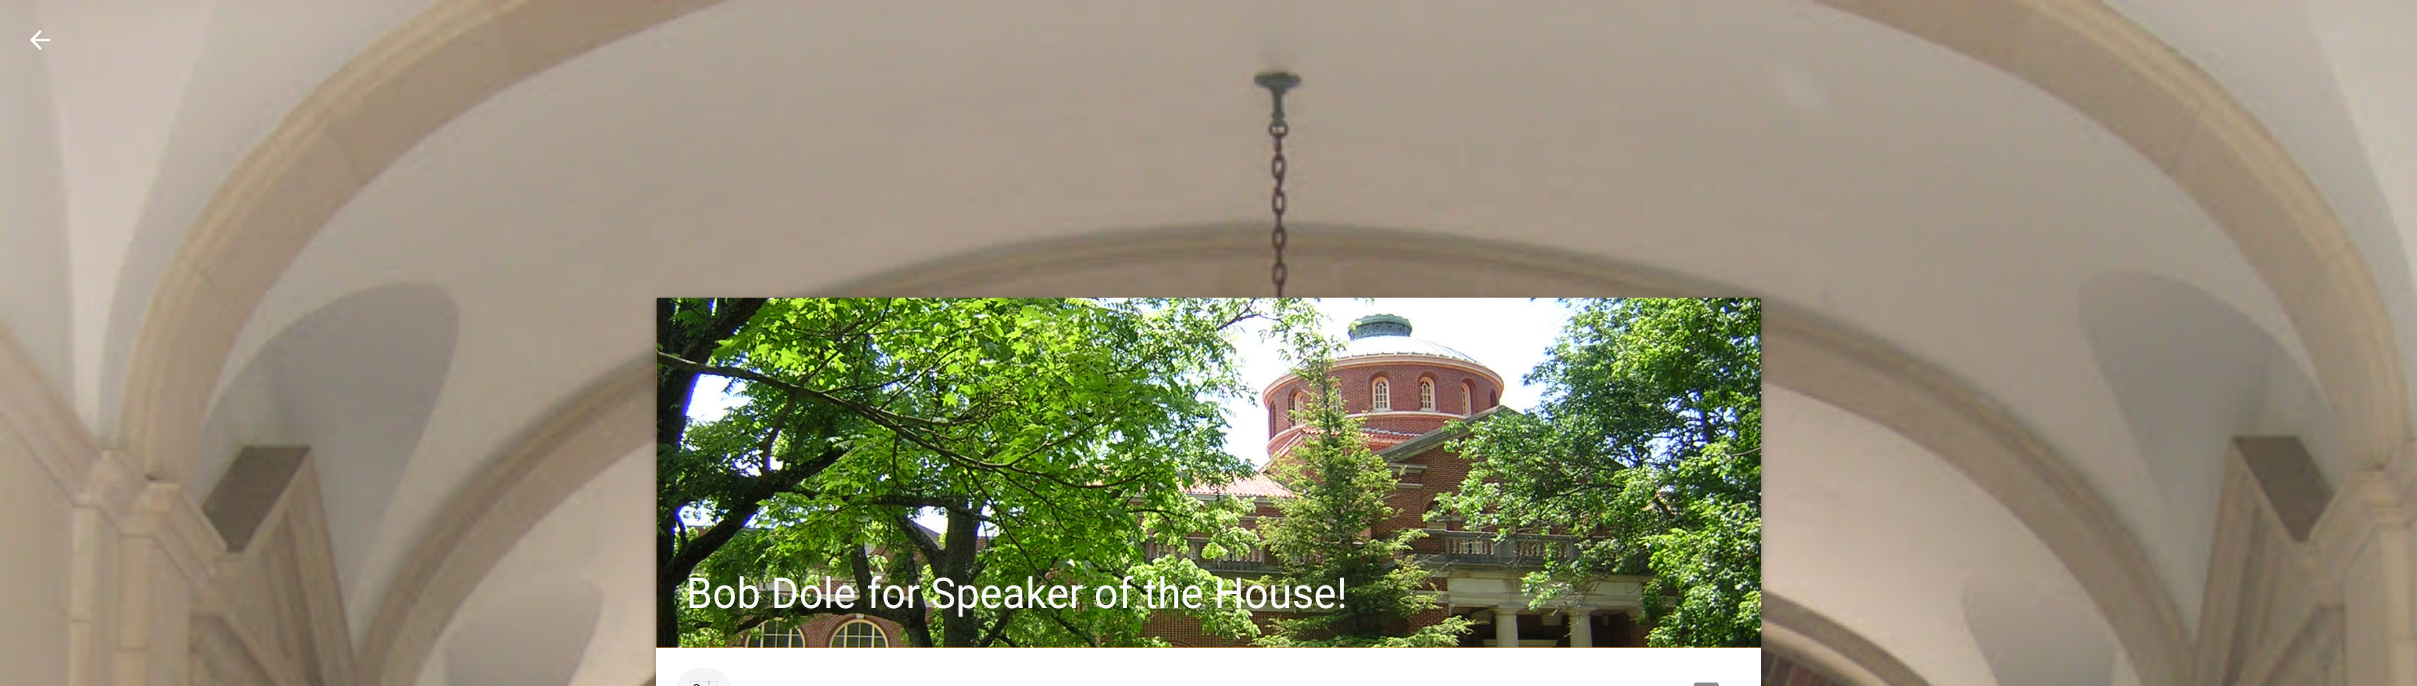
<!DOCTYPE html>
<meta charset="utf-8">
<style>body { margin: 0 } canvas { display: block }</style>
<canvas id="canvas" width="2417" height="686"></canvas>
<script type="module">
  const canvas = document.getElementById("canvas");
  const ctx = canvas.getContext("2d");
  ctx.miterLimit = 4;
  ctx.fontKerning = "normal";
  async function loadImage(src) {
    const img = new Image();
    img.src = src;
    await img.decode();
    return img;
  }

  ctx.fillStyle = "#ffffff";
  ctx.fillRect(0, 0, 2417, 686);
  ctx.drawImage(await loadImage("img1.png"), 0, 0, 2417, 686);
  ctx.drawImage(await loadImage("img2.png"), 30, 30, 20, 20);
  ctx.fillStyle = "rgba(0, 0, 0, 0.2)";
  ctx.filter = "blur(2.5px)";
  ctx.beginPath();
  ctx.roundRect(658, 301, 1102, 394, 1);
  ctx.fill();
  ctx.filter = "none";
  ctx.fillStyle = "rgba(0, 0, 0, 0.12)";
  ctx.filter = "blur(6px)";
  ctx.beginPath();
  ctx.roundRect(656, 299, 1105, 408, 2.5);
  ctx.fill();
  ctx.filter = "none";
  ctx.fillStyle = "rgba(0, 0, 0, 0.14)";
  ctx.filter = "blur(3px)";
  ctx.beginPath();
  ctx.roundRect(656, 303, 1105, 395, 2.5);
  ctx.fill();
  ctx.filter = "none";
  ctx.fillStyle = "#ffffff";
  ctx.beginPath();
  ctx.roundRect(656, 298, 1105, 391, 2.5);
  ctx.fill();
  ctx.fillStyle = "#ffab40";
  ctx.beginPath();
  ctx.roundRect(656, 298, 1105, 350, [2.5, 2.5, 0, 0]);
  ctx.fill();
  ctx.drawImage(await loadImage("img3.png"), 656, 297, 1106, 351);
  ctx.font = "42.5px Roboto";
  ctx.fillStyle = "#fafafa";
  ctx.fillText("Bob Dole for Speaker of the House!", 686, 608);
  ctx.fillStyle = "#f5f5f5";
  ctx.beginPath();
  ctx.roundRect(676, 668, 55, 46, 27.5);
  ctx.fill();
  ctx.drawImage(await loadImage("img4.png"), 690, 681, 28, 5);
  ctx.drawImage(await loadImage("img5.png"), 1693, 682, 26, 4);
</script>
